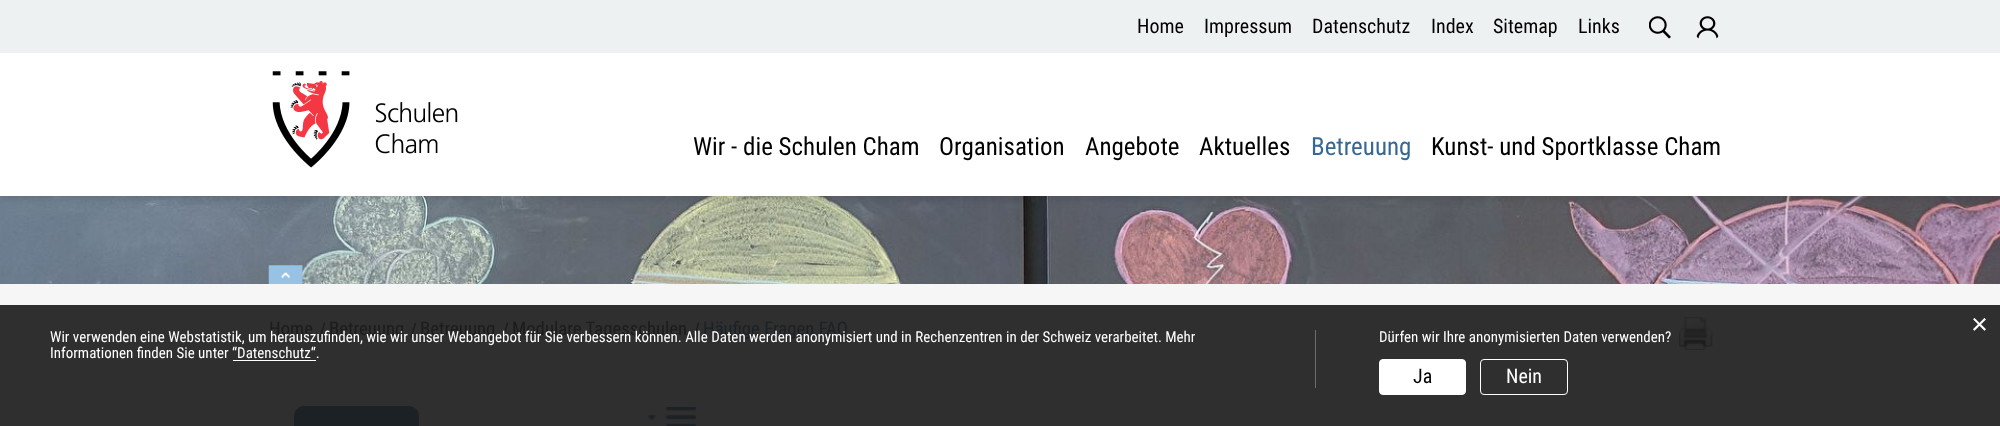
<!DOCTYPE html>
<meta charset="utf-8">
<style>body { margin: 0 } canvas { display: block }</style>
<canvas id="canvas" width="2000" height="426"></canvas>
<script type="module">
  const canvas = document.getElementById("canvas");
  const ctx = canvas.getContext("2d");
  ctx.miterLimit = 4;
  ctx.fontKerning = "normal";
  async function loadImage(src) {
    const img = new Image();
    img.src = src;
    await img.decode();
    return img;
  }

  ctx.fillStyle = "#f6f6f6";
  ctx.fillRect(0, 0, 2000, 426);
  ctx.drawImage(await loadImage("img4.png"), 0, 196, 2000, 88);
  ctx.fillStyle = "rgba(0, 0, 0, 0.2)";
  ctx.filter = "blur(6px)";
  ctx.beginPath();
  ctx.rect(0, 0, 2000, 196);
  ctx.fill();
  ctx.filter = "none";
  ctx.fillStyle = "#ffffff";
  ctx.fillRect(0, 53, 2000, 143);
  ctx.fillStyle = "#eef1f2";
  ctx.fillRect(0, 0, 2000, 53);
  ctx.font = "20px Roboto Condensed";
  ctx.fillStyle = "#000000";
  ctx.fillText("Home", 1137, 33);
  ctx.fillText("Impressum", 1204, 33);
  ctx.fillText("Datenschutz", 1312, 33);
  ctx.fillText("Index", 1431, 33);
  ctx.fillText("Sitemap", 1493, 33);
  ctx.fillText("Links", 1578, 33);
  ctx.drawImage(await loadImage("img1.png"), 1649, 16, 22, 23);
  ctx.drawImage(await loadImage("img2.png"), 1696, 16, 23, 23);
  ctx.drawImage(await loadImage("img3.png"), 272, 71, 186, 97);
  ctx.font = "25px Roboto Condensed";
  ctx.fillText("Wir - die Schulen Cham", 693, 155);
  ctx.fillText("Organisation", 939, 155);
  ctx.fillText("Angebote", 1085, 155);
  ctx.fillText("Aktuelles", 1199, 155);
  ctx.fillStyle = "#356894";
  ctx.fillText("Betreuung", 1311, 155);
  ctx.fillStyle = "#000000";
  ctx.fillText("Kunst- und Sportklasse Cham", 1431, 155);
  ctx.drawImage(await loadImage("img5.png"), 268, 265, 35, 19);
  ctx.fillStyle = "#2f2f2f";
  ctx.fillRect(0, 305, 2000, 121);
  ctx.font = "18.75px Roboto Condensed";
  ctx.fillStyle = "#1c1c1c";
  ctx.fillText("Home", 269, 335);
  ctx.fillText("/", 319, 336);
  ctx.fillText("Betreuung", 329, 335);
  ctx.fillText("/", 410, 336);
  ctx.fillText("Betreuung", 420, 335);
  ctx.fillText("/", 502, 336);
  ctx.fillText("Modulare Tagesschulen", 512, 335);
  ctx.fillText("/", 693, 336);
  ctx.fillStyle = "#1c2125";
  ctx.fillText("Häufige Fragen FAQ", 703, 335);
  ctx.drawImage(await loadImage("img6.png"), 1679, 317, 34, 33);
  ctx.beginPath();
  ctx.roundRect(294, 406, 125, 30, 10);
  ctx.fill();
  ctx.drawImage(await loadImage("img7.png"), 648, 407, 48, 19);
  ctx.font = "29px Liberation Sans";
  ctx.fillStyle = "#ffffff";
  ctx.fillText("×", 1971, 334);
  ctx.fillStyle = "#6d6d6d";
  ctx.fillRect(1315, 330, 1, 58);
  ctx.font = "15px Roboto Condensed";
  ctx.fillStyle = "#ffffff";
  ctx.fillText("Wir verwenden eine Webstatistik, um herauszufinden, wie wir unser Webangebot für Sie verbessern können. Alle Daten werden anonymisiert und in Rechenzentren in der Schweiz verarbeitet. Mehr", 50, 342);
  ctx.fillText("Informationen finden Sie unter “Datenschutz“.", 50, 358);
  ctx.fillRect(233, 360, 83, 1);
  ctx.fillText("Dürfen wir Ihre anonymisierten Daten verwenden?", 1379, 342);
  ctx.beginPath();
  ctx.roundRect(1379.5, 359.5, 86, 35, 3.5);
  ctx.fill();
  ctx.strokeStyle = "#ffffff";
  ctx.stroke();
  ctx.font = "20px Roboto Condensed";
  ctx.fillStyle = "#000000";
  ctx.fillText("Ja", 1413, 383);
  ctx.beginPath();
  ctx.roundRect(1480.5, 359.5, 87, 35, 3.5);
  ctx.stroke();
  ctx.fillStyle = "#ffffff";
  ctx.fillText("Nein", 1506, 383);
</script>
